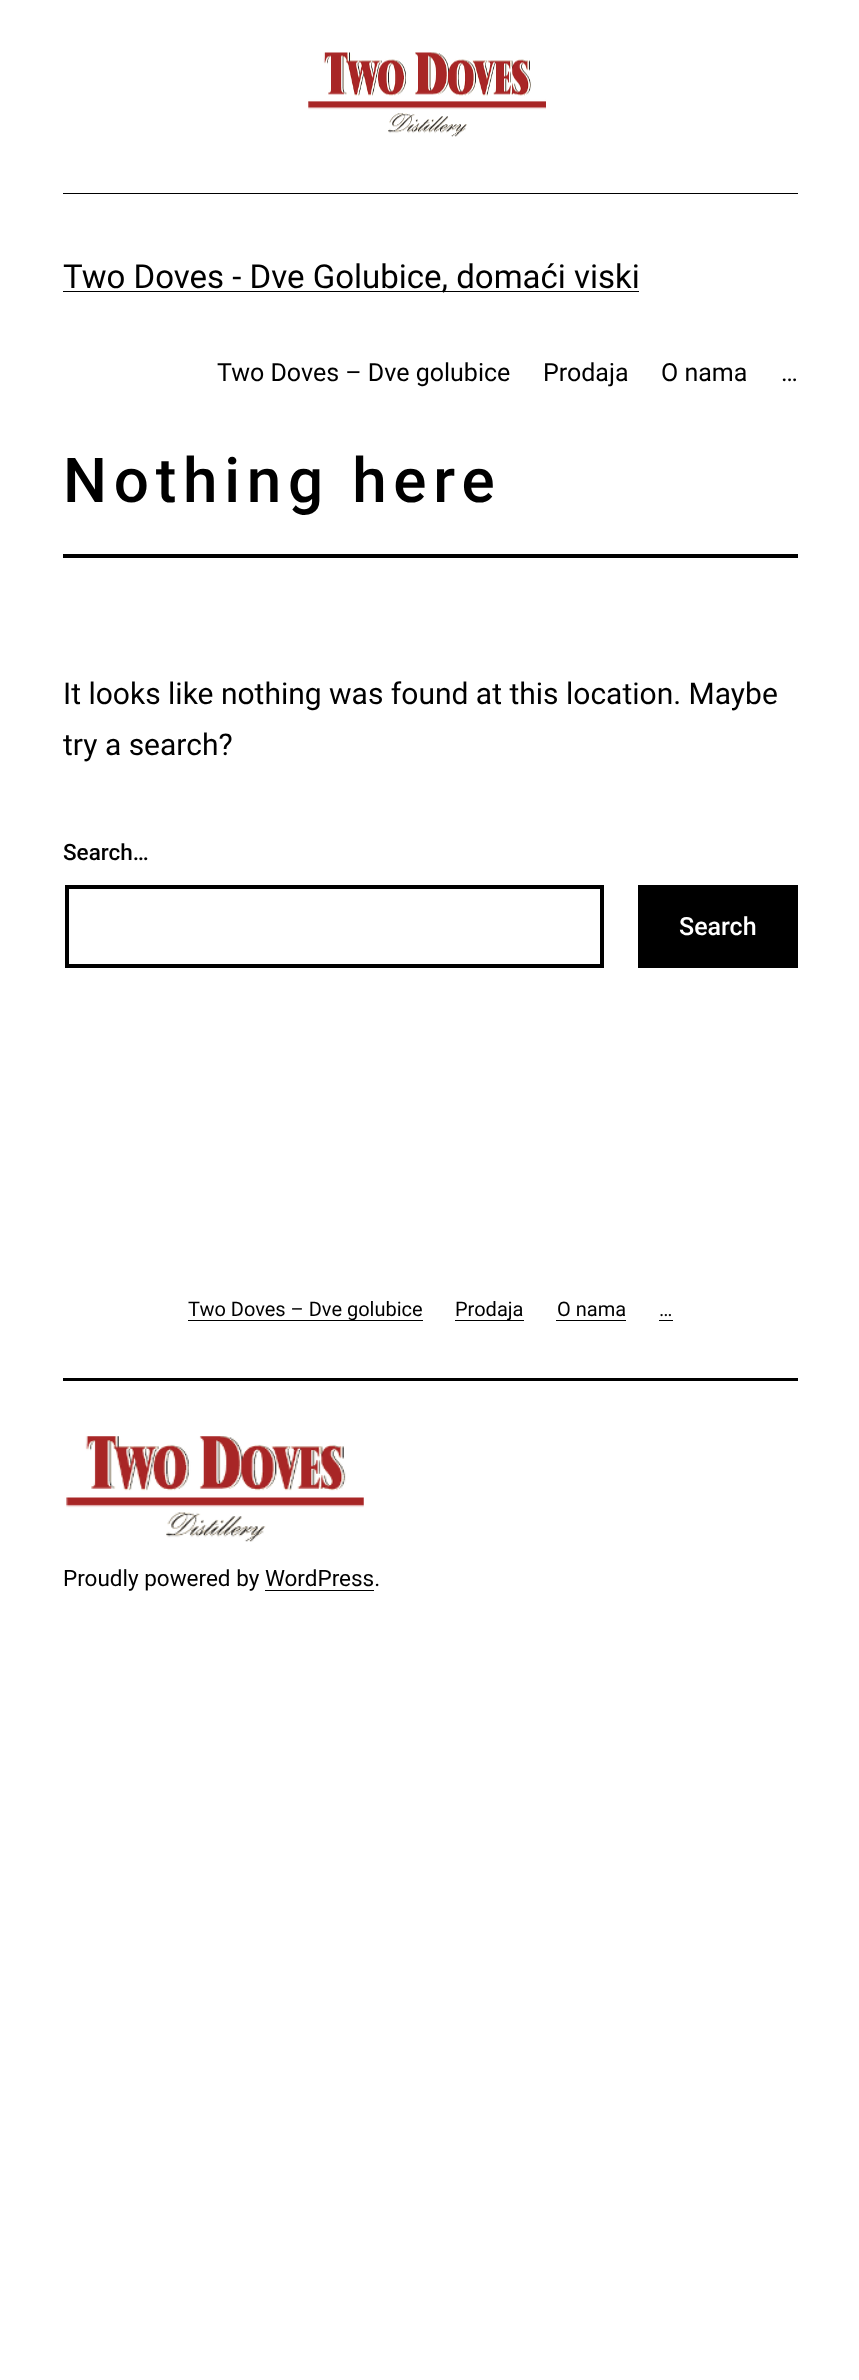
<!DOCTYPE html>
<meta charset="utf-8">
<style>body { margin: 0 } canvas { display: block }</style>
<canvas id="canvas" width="859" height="2380"></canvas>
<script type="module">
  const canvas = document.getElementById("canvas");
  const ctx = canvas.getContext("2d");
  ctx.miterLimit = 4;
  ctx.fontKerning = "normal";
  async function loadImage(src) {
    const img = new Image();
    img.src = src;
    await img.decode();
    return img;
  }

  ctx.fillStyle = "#ffffff";
  ctx.fillRect(0, 0, 859, 2380);
  ctx.fillStyle = "#000000";
  ctx.fillRect(63, 193, 735, 1);
  ctx.drawImage(await loadImage("img1.png"), 308, 52, 238, 85);
  ctx.fillRect(63, 291, 576, 1);
  ctx.font = "33px Roboto";
  ctx.fillText("Two Doves - Dve Golubice, domaći viski", 63, 288);
  ctx.font = "25px Roboto";
  ctx.fillText("Two Doves – Dve golubice", 217, 381);
  ctx.fillText("Prodaja", 543, 381);
  ctx.fillText("O nama", 661, 381);
  ctx.fillText("…", 781, 381);
  ctx.fillRect(63, 554, 735, 4);
  ctx.letterSpacing = "6.75px";
  ctx.font = "500 62px Roboto";
  ctx.fillText("Nothing here", 63, 502);
  ctx.letterSpacing = "0px";
  ctx.font = "30px Roboto";
  ctx.fillText("It looks like nothing was found at this location. Maybe", 63, 704);
  ctx.fillText("try a search?", 63, 755);
  ctx.font = "500 22.5px Roboto";
  ctx.fillText("Search…", 63, 860);
  ctx.strokeStyle = "#000000";
  ctx.lineWidth = 4;
  ctx.strokeRect(67, 887, 535, 79);
  ctx.fillRect(638, 885, 160, 83);
  ctx.font = "500 25px Roboto";
  ctx.fillStyle = "#ffffff";
  ctx.fillText("Search", 679, 935);
  ctx.fillStyle = "#000000";
  ctx.fillRect(188, 1320, 235, 1);
  ctx.font = "20px Roboto";
  ctx.fillText("Two Doves – Dve golubice", 188, 1316);
  ctx.fillRect(455, 1320, 69, 1);
  ctx.fillText("Prodaja", 455, 1316);
  ctx.fillText("O nama", 557, 1316);
  ctx.fillRect(556, 1320, 70, 1);
  ctx.fillText("…", 659, 1316);
  ctx.fillRect(659, 1320, 14, 1);
  ctx.fillRect(63, 1378, 735, 3);
  ctx.drawImage(await loadImage("img2.png"), 66, 1436, 298, 106);
  ctx.font = "22.5px Roboto";
  ctx.fillText("Proudly powered by WordPress.", 63, 1586);
  ctx.fillRect(265, 1590, 109, 1);
</script>
